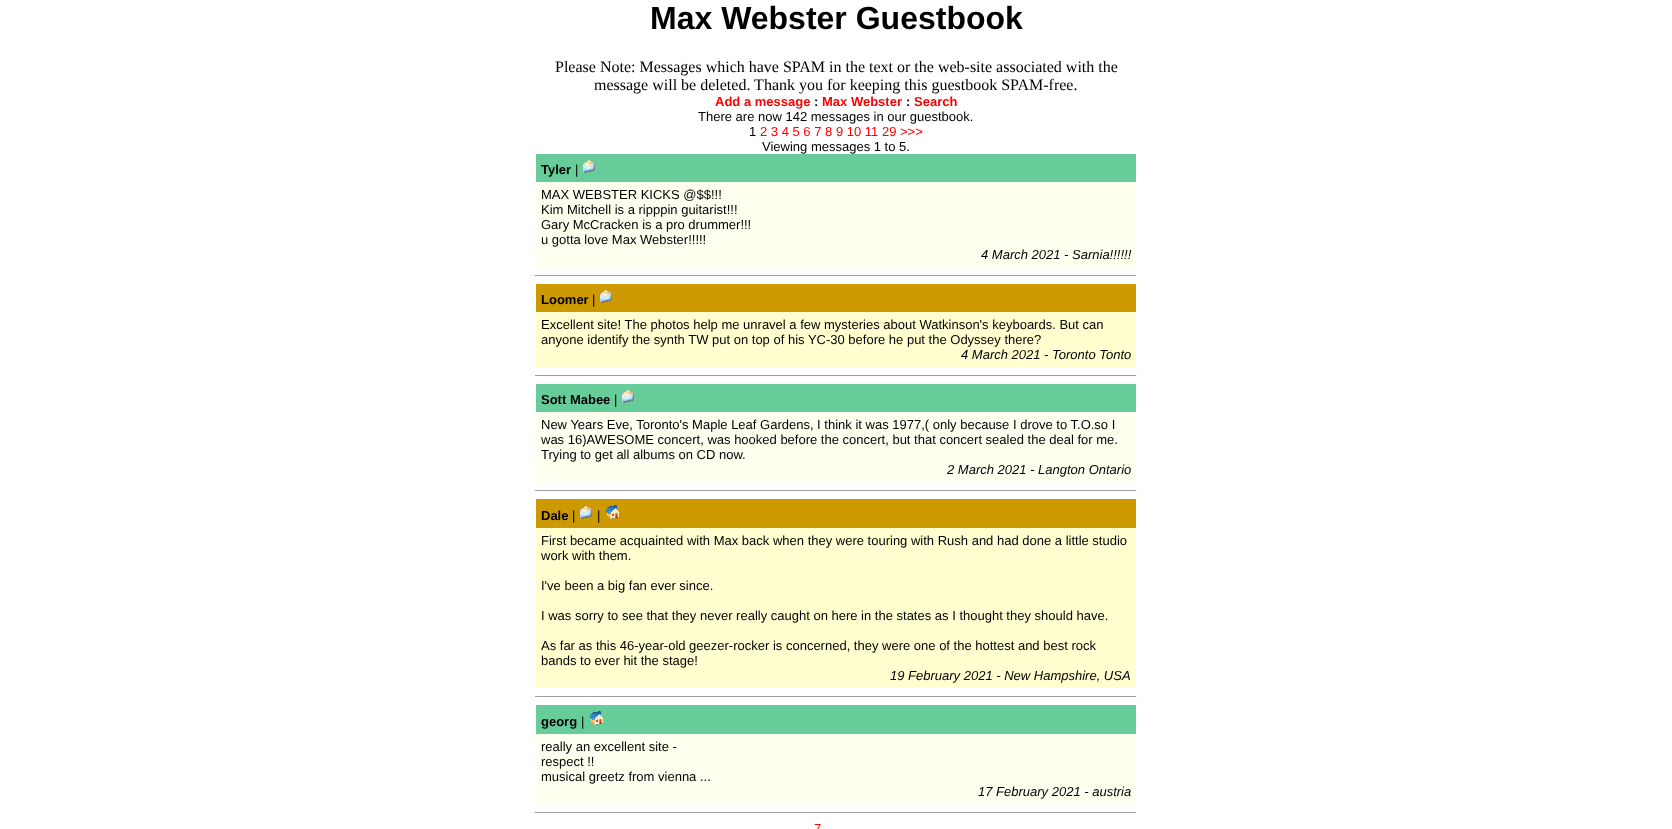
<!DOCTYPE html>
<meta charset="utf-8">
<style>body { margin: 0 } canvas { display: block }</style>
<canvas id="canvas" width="1672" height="829"></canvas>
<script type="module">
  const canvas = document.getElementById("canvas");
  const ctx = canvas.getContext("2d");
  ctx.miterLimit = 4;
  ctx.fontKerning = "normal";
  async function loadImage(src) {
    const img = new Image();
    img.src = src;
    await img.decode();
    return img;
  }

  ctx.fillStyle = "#ffffff";
  ctx.fillRect(0, 0, 1672, 829);
  ctx.font = "bold 32px Liberation Sans";
  ctx.fillStyle = "#000000";
  ctx.fillText("Max Webster Guestbook", 650, 29);
  ctx.font = "16px Liberation Serif";
  ctx.fillText("Please Note: Messages which have SPAM in the text or the web-site associated with the", 555, 72);
  ctx.fillText("message will be deleted. Thank you for keeping this guestbook SPAM-free.", 594, 90);
  ctx.font = "bold 13px Liberation Sans";
  ctx.fillStyle = "#ff0000";
  ctx.fillText("Add a message", 715, 106);
  ctx.fillStyle = "#000000";
  ctx.fillText(":", 814, 106);
  ctx.fillStyle = "#ff0000";
  ctx.fillText("Max Webster", 822, 106);
  ctx.fillStyle = "#000000";
  ctx.fillText(":", 906, 106);
  ctx.fillStyle = "#ff0000";
  ctx.fillText("Search", 914, 106);
  ctx.font = "13px Liberation Sans";
  ctx.fillStyle = "#000000";
  ctx.fillText("There are now 142 messages in our guestbook.", 698, 121);
  ctx.fillText("1", 749, 136);
  ctx.fillStyle = "#ff0000";
  ctx.fillText("2 3 4 5 6 7 8 9 10 11 29 >>>", 760, 136);
  ctx.fillStyle = "#000000";
  ctx.fillText("Viewing messages 1 to 5.", 762, 151);
  ctx.fillStyle = "#66cc99";
  ctx.fillRect(536, 154, 600, 28);
  ctx.font = "bold 13px Liberation Sans";
  ctx.fillStyle = "#000000";
  ctx.fillText("Tyler", 541, 174);
  ctx.font = "13px Liberation Sans";
  ctx.fillText("|", 575, 174);
  ctx.drawImage(await loadImage("img1.png"), 583, 160, 12, 13);
  ctx.fillStyle = "#fffff0";
  ctx.fillRect(536, 182, 600, 85);
  ctx.fillStyle = "#000000";
  ctx.fillText("MAX WEBSTER KICKS @$$!!!", 541, 199);
  ctx.fillText("Kim Mitchell is a ripppin guitarist!!!", 541, 214);
  ctx.fillText("Gary McCracken is a pro drummer!!!", 541, 229);
  ctx.fillText("u gotta love Max Webster!!!!!", 541, 244);
  ctx.font = "italic 13px Liberation Sans";
  ctx.fillText("4 March 2021 - Sarnia!!!!!!", 981, 259);
  ctx.fillStyle = "#9f9f9f";
  ctx.fillRect(535, 275, 602, 1);
  ctx.fillStyle = "#eeeeee";
  ctx.fillRect(1136, 275, 1, 1);
  ctx.fillStyle = "#cc9900";
  ctx.fillRect(536, 284, 600, 28);
  ctx.font = "bold 13px Liberation Sans";
  ctx.fillStyle = "#000000";
  ctx.fillText("Loomer", 541, 304);
  ctx.font = "13px Liberation Sans";
  ctx.fillText("|", 592, 304);
  ctx.drawImage(await loadImage("img2.png"), 600, 290, 12, 13);
  ctx.fillStyle = "#ffffd0";
  ctx.fillRect(536, 312, 600, 55);
  ctx.fillStyle = "#000000";
  ctx.fillText("Excellent site! The photos help me unravel a few mysteries about Watkinson's keyboards. But can", 541, 329);
  ctx.fillText("anyone identify the synth TW put on top of his YC-30 before he put the Odyssey there?", 541, 344);
  ctx.font = "italic 13px Liberation Sans";
  ctx.fillText("4 March 2021 - Toronto Tonto", 961, 359);
  ctx.fillStyle = "#9f9f9f";
  ctx.fillRect(535, 375, 602, 1);
  ctx.fillStyle = "#eeeeee";
  ctx.fillRect(1136, 375, 1, 1);
  ctx.fillStyle = "#66cc99";
  ctx.fillRect(536, 384, 600, 28);
  ctx.font = "bold 13px Liberation Sans";
  ctx.fillStyle = "#000000";
  ctx.fillText("Sott Mabee", 541, 404);
  ctx.font = "13px Liberation Sans";
  ctx.fillText("|", 614, 404);
  ctx.drawImage(await loadImage("img1.png"), 622, 390, 12, 13);
  ctx.fillStyle = "#fffff0";
  ctx.fillRect(536, 412, 600, 70);
  ctx.fillStyle = "#000000";
  ctx.fillText("New Years Eve, Toronto's Maple Leaf Gardens, I think it was 1977,( only because I drove to T.O.so I", 541, 429);
  ctx.fillText("was 16)AWESOME concert, was hooked before the concert, but that concert sealed the deal for me.", 541, 444);
  ctx.fillText("Trying to get all albums on CD now.", 541, 459);
  ctx.font = "italic 13px Liberation Sans";
  ctx.fillText("2 March 2021 - Langton Ontario", 947, 474);
  ctx.fillStyle = "#9f9f9f";
  ctx.fillRect(535, 490, 602, 1);
  ctx.fillStyle = "#eeeeee";
  ctx.fillRect(1136, 490, 1, 1);
  ctx.fillStyle = "#cc9900";
  ctx.fillRect(536, 499, 600, 29);
  ctx.font = "bold 13px Liberation Sans";
  ctx.fillStyle = "#000000";
  ctx.fillText("Dale", 541, 520);
  ctx.font = "13px Liberation Sans";
  ctx.fillText("|", 572, 520);
  ctx.drawImage(await loadImage("img2.png"), 580, 506, 12, 13);
  ctx.fillText("|", 597, 520);
  ctx.drawImage(await loadImage("img3.png"), 605, 505, 14, 14);
  ctx.fillStyle = "#ffffd0";
  ctx.fillRect(536, 528, 600, 160);
  ctx.fillStyle = "#000000";
  ctx.fillText("First became acquainted with Max back when they were touring with Rush and had done a little studio", 541, 545);
  ctx.fillText("work with them.", 541, 560);
  ctx.fillText("I've been a big fan ever since.", 541, 590);
  ctx.fillText("I was sorry to see that they never really caught on here in the states as I thought they should have.", 541, 620);
  ctx.fillText("As far as this 46-year-old geezer-rocker is concerned, they were one of the hottest and best rock", 541, 650);
  ctx.fillText("bands to ever hit the stage!", 541, 665);
  ctx.font = "italic 13px Liberation Sans";
  ctx.fillText("19 February 2021 - New Hampshire, USA", 890, 680);
  ctx.fillStyle = "#9f9f9f";
  ctx.fillRect(535, 696, 602, 1);
  ctx.fillStyle = "#eeeeee";
  ctx.fillRect(1136, 696, 1, 1);
  ctx.fillStyle = "#66cc99";
  ctx.fillRect(536, 705, 600, 29);
  ctx.font = "bold 13px Liberation Sans";
  ctx.fillStyle = "#000000";
  ctx.fillText("georg", 541, 726);
  ctx.font = "13px Liberation Sans";
  ctx.fillText("|", 581, 726);
  ctx.drawImage(await loadImage("img4.png"), 589, 711, 14, 14);
  ctx.fillStyle = "#fffff0";
  ctx.fillRect(536, 734, 600, 70);
  ctx.fillStyle = "#000000";
  ctx.fillText("really an excellent site -", 541, 751);
  ctx.fillText("respect !!", 541, 766);
  ctx.fillText("musical greetz from vienna ...", 541, 781);
  ctx.font = "italic 13px Liberation Sans";
  ctx.fillText("17 February 2021 - austria", 978, 796);
  ctx.fillStyle = "#9f9f9f";
  ctx.fillRect(535, 812, 602, 1);
  ctx.fillStyle = "#eeeeee";
  ctx.fillRect(1136, 812, 1, 1);
  ctx.font = "13px Liberation Sans";
  ctx.fillStyle = "#ff0000";
  ctx.fillText("7", 814, 833);
</script>
